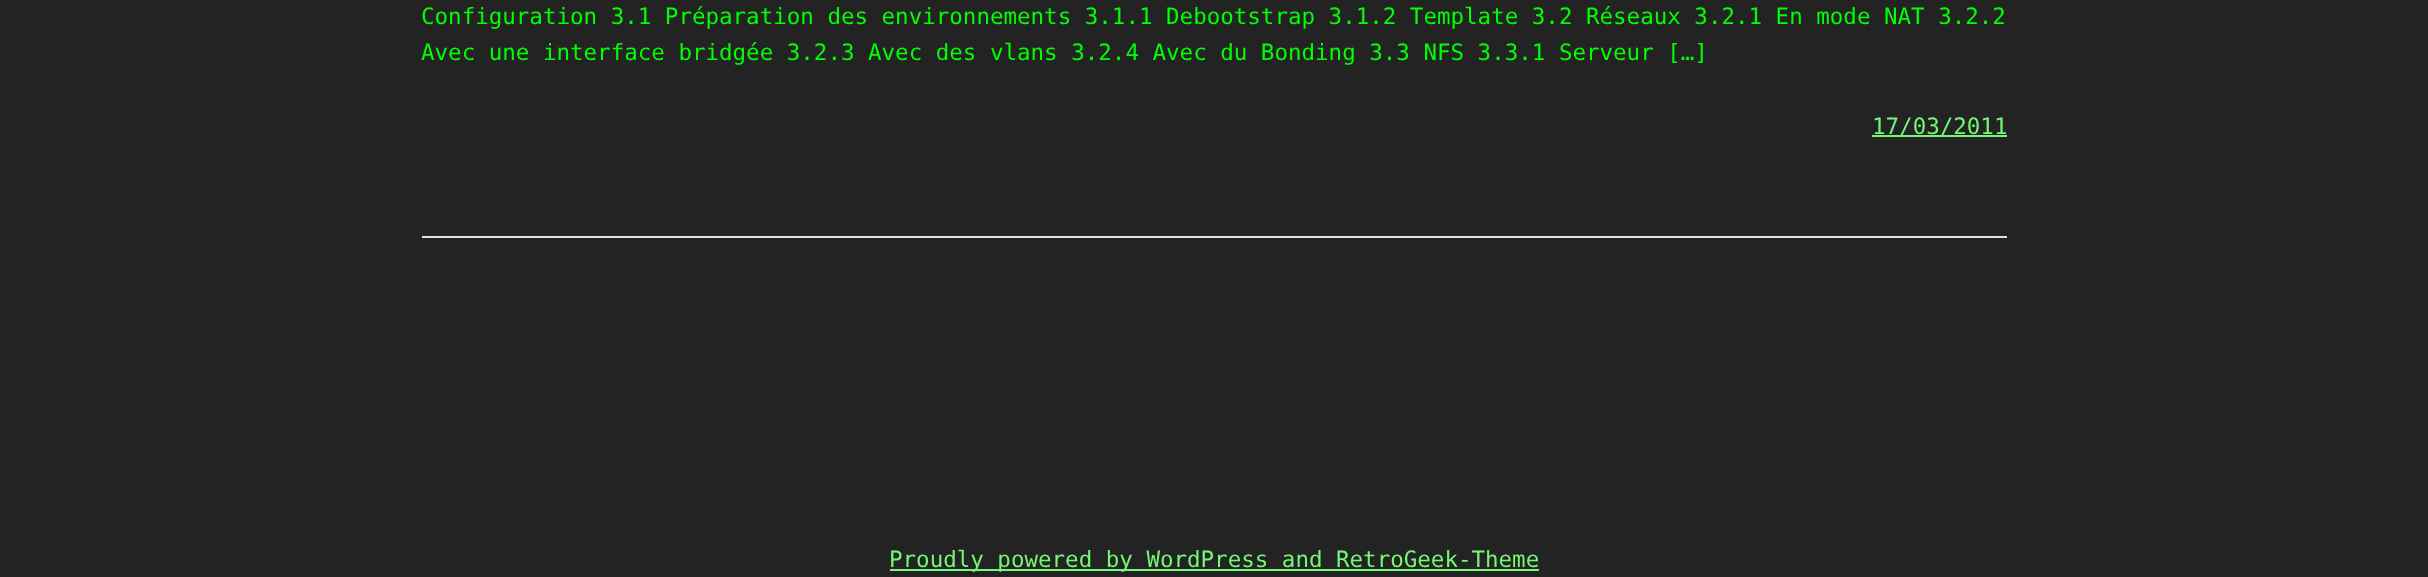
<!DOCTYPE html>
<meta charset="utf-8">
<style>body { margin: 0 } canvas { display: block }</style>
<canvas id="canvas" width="2428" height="577"></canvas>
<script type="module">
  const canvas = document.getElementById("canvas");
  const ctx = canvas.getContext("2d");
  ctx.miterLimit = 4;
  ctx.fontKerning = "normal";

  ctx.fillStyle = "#232323";
  ctx.fillRect(0, 0, 2428, 577);
  ctx.font = "22.5px DejaVu Sans Mono";
  ctx.fillStyle = "#00ff00";
  ctx.fillText("Configuration 3.1 Préparation des environnements 3.1.1 Debootstrap 3.1.2 Template 3.2 Réseaux 3.2.1 En mode NAT 3.2.2", 421, 24);
  ctx.fillText("Avec une interface bridgée 3.2.3 Avec des vlans 3.2.4 Avec du Bonding 3.3 NFS 3.3.1 Serveur […]", 421, 60);
  ctx.fillStyle = "#74f774";
  ctx.fillRect(1872, 135, 135, 2);
  ctx.fillText("17/03/2011", 1872, 134);
  ctx.fillStyle = "#e1e1e1";
  ctx.fillRect(422, 236, 1585, 2);
  ctx.fillStyle = "#74f774";
  ctx.fillRect(890, 569, 649, 2);
  ctx.fillText("Proudly powered by WordPress and RetroGeek-Theme", 889, 567);
</script>
